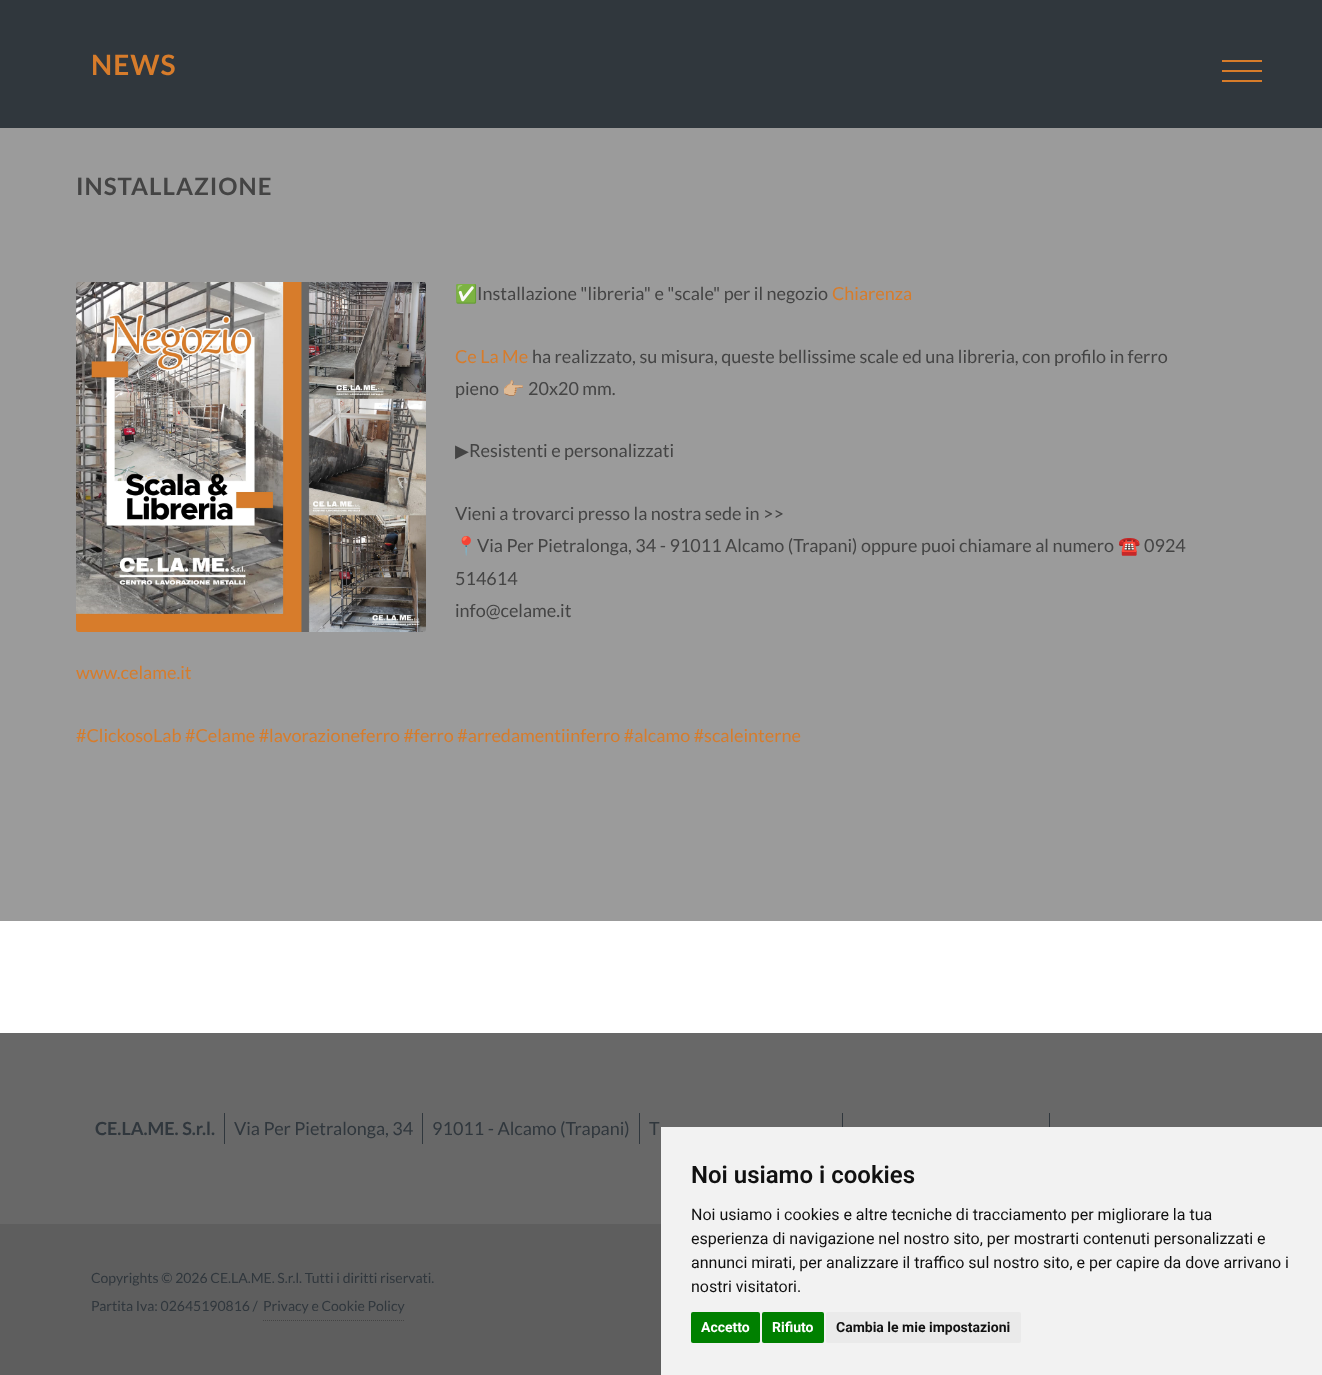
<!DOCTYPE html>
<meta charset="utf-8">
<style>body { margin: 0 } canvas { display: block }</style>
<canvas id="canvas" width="1322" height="1375"></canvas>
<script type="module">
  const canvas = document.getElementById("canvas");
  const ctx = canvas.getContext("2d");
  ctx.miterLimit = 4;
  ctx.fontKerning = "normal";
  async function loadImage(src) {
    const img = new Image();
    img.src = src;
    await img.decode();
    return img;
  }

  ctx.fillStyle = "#ffffff";
  ctx.fillRect(0, 0, 1322, 1375);
  ctx.fillStyle = "#30373d";
  ctx.fillRect(0, 0, 1322, 128);
  ctx.letterSpacing = "1px";
  ctx.font = "bold 28px Lato";
  ctx.fillStyle = "#d77c2b";
  ctx.fillText("NEWS", 91, 75);
  ctx.fillStyle = "#9b9b9b";
  ctx.fillRect(0, 128, 1322, 793);
  ctx.fillStyle = "#d77c2a";
  ctx.fillRect(1222, 60, 40, 2);
  ctx.fillRect(1222, 70, 40, 2);
  ctx.fillRect(1222, 80, 40, 2);
  ctx.font = "bold 24px Lato";
  ctx.fillStyle = "#444444";
  ctx.fillText("INSTALLAZIONE", 76, 195);
  ctx.drawImage(await loadImage("img1.png"), 76, 282, 350, 350);
  ctx.letterSpacing = "0px";
  ctx.font = "18px Noto Color Emoji";
  ctx.fillText("✅", 455, 300);
  ctx.font = "18px Lato";
  ctx.fillText("Installazione \"libreria\" e \"scale\" per il negozio", 477, 300);
  ctx.fillStyle = "#d77c2b";
  ctx.fillText("Chiarenza", 832, 300);
  ctx.fillText("Ce La Me", 455, 363);
  ctx.fillStyle = "#444444";
  ctx.fillText("ha realizzato, su misura, queste bellissime scale ed una libreria, con profilo in ferro", 532, 363);
  ctx.fillText("pieno", 455, 395);
  ctx.font = "18px Noto Color Emoji";
  ctx.fillText("👉🏼", 502, 395);
  ctx.font = "18px Lato";
  ctx.fillText("20x20 mm.", 528, 395);
  ctx.font = "18px DejaVu Sans";
  ctx.fillText("▶", 455, 457);
  ctx.font = "18px Lato";
  ctx.fillText("Resistenti e personalizzati", 469, 457);
  ctx.fillText("Vieni a trovarci presso la nostra sede in >>", 455, 520);
  ctx.font = "18px Noto Color Emoji";
  ctx.fillText("📍", 455, 552);
  ctx.font = "18px Lato";
  ctx.fillText("Via Per Pietralonga, 34 - 91011 Alcamo (Trapani) oppure puoi chiamare al numero", 477, 552);
  ctx.font = "18px Noto Color Emoji";
  ctx.fillText("☎️", 1118, 552);
  ctx.font = "18px Lato";
  ctx.fillText("0924", 1144, 552);
  ctx.fillText("514614", 455, 585);
  ctx.fillText("info@celame.it", 455, 617);
  ctx.fillStyle = "#d77c2b";
  ctx.fillText("www.celame.it", 76, 679);
  ctx.fillText("#ClickosoLab #Celame #lavorazioneferro #ferro #arredamentiinferro #alcamo #scaleinterne", 76, 742);
  ctx.fillStyle = "#686868";
  ctx.fillRect(0, 1033, 1322, 191);
  ctx.font = "bold 18px Lato";
  ctx.fillStyle = "#30373d";
  ctx.fillText("CE.LA.ME. S.r.l.", 95, 1135);
  ctx.fillRect(224, 1113, 1, 31);
  ctx.font = "18px Lato";
  ctx.fillText("Via Per Pietralonga, 34", 234, 1135);
  ctx.fillRect(422, 1113, 1, 31);
  ctx.fillText("91011 - Alcamo (Trapani)", 432, 1135);
  ctx.fillRect(639, 1113, 1, 31);
  ctx.fillText("T", 649, 1135);
  ctx.fillRect(842, 1113, 1, 14);
  ctx.fillRect(1049, 1113, 1, 14);
  ctx.fillStyle = "#5e5e5e";
  ctx.fillRect(0, 1224, 661, 151);
  ctx.font = "14px Lato";
  ctx.fillStyle = "#30373d";
  ctx.fillText("Copyrights © 2026 CE.LA.ME. S.r.l. Tutti i diritti riservati.", 91, 1283);
  ctx.fillText("Partita Iva: 02645190816 /", 91, 1311);
  ctx.beginPath();
  ctx.moveTo(263, 1320.5);
  ctx.lineTo(405, 1320.5);
  ctx.strokeStyle = "#444444";
  ctx.setLineDash([1, 1]);
  ctx.stroke();
  ctx.fillText("Privacy e Cookie Policy", 263, 1311);
  ctx.fillStyle = "#f2f2f2";
  ctx.fillRect(661, 1127, 661, 248);
  ctx.font = "600 24px Roboto";
  ctx.fillStyle = "#111111";
  ctx.fillText("Noi usiamo i cookies", 691, 1183);
  ctx.font = "16px Roboto";
  ctx.fillText("Noi usiamo i cookies e altre tecniche di tracciamento per migliorare la tua", 691, 1220);
  ctx.fillText("esperienza di navigazione nel nostro sito, per mostrarti contenuti personalizzati e", 691, 1244);
  ctx.fillText("annunci mirati, per analizzare il traffico sul nostro sito, e per capire da dove arrivano i", 691, 1268);
  ctx.fillText("nostri visitatori.", 691, 1292);
  ctx.fillStyle = "#008000";
  ctx.beginPath();
  ctx.roundRect(691, 1312, 69, 31, 2);
  ctx.fill();
  ctx.font = "bold 14px Roboto";
  ctx.fillStyle = "#ffffff";
  ctx.fillText("Accetto", 701, 1332);
  ctx.fillStyle = "#008000";
  ctx.beginPath();
  ctx.roundRect(762, 1312, 62, 31, 2);
  ctx.fill();
  ctx.fillStyle = "#ffffff";
  ctx.fillText("Rifiuto", 772, 1332);
  ctx.fillStyle = "#eaeaea";
  ctx.beginPath();
  ctx.roundRect(826, 1312, 195, 31, 2);
  ctx.fill();
  ctx.fillStyle = "#111111";
  ctx.fillText("Cambia le mie impostazioni", 836, 1332);
</script>
